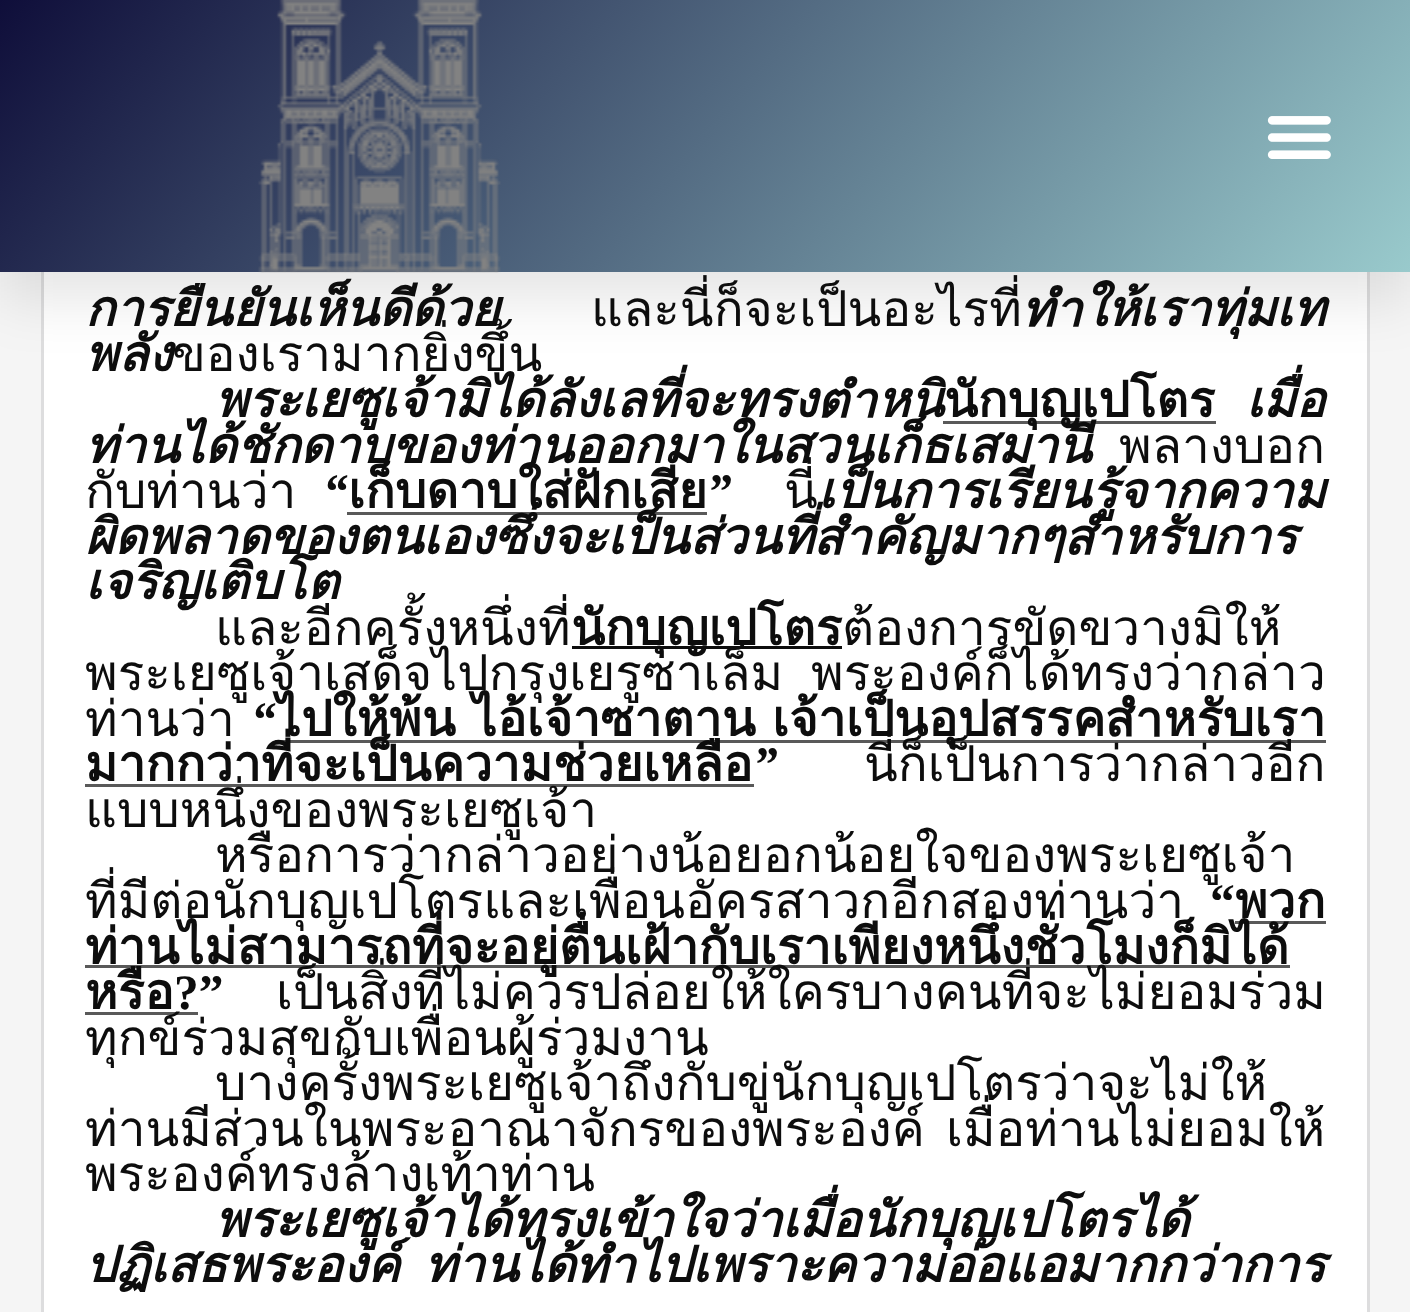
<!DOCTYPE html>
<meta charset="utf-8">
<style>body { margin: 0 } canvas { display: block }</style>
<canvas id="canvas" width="1410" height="1312"></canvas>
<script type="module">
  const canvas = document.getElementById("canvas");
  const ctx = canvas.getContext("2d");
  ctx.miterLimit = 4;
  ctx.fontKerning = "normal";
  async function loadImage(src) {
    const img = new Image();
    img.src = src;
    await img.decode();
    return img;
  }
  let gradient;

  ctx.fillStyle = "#f5f5f5";
  ctx.fillRect(0, 0, 1410, 1312);
  ctx.fillStyle = "#ffffff";
  ctx.fillRect(44, 272, 1323, 1040);
  ctx.strokeStyle = "#ddddde";
  ctx.lineWidth = 3;
  ctx.strokeRect(42.5, -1.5, 1326, 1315);
  ctx.fillStyle = "rgba(0, 0, 0, 0.1)";
  ctx.filter = "blur(27.5px)";
  ctx.beginPath();
  ctx.rect(0, 28, 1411, 272);
  ctx.fill();
  ctx.filter = "none";
  gradient = ctx.createLinearGradient(224, -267, 1186, 540);
  gradient.addColorStop(0, "#0f0e3a");
  gradient.addColorStop(1, "#99cacc");
  ctx.fillStyle = gradient;
  ctx.fillRect(0, 0, 1410, 272);
  ctx.drawImage(await loadImage("img1.png"), 258, 0, 243, 273);
  ctx.drawImage(await loadImage("img2.png"), 1267, 116, 64, 43);
  ctx.font = "italic bold 49.5px Loma";
  ctx.fillStyle = "#0d0d0d";
  ctx.fillText("การยืนยันเห็นดีด้วย", 85, 326);
  ctx.font = "49.5px Loma";
  ctx.fillText("และนี่ก็จะเป็นอะไรที่", 591, 326);
  ctx.font = "italic bold 49.5px Loma";
  ctx.fillText("ทำให้เราทุ่มเท", 1022, 326);
  ctx.fillText("พลัง", 85, 371);
  ctx.font = "49.5px Loma";
  ctx.fillText("ของเรามากยิ่งขึ้น", 172, 371);
  ctx.font = "italic bold 49.5px Loma";
  ctx.fillText("พระเยซูเจ้ามิได้ลังเลที่จะทรงตำหนิ", 215, 417);
  ctx.fillStyle = "#595959";
  ctx.fillRect(943, 421, 273, 3);
  ctx.font = "bold 49.5px Loma";
  ctx.fillStyle = "#0d0d0d";
  ctx.fillText("นักบุญเปโตร", 944, 417);
  ctx.font = "italic bold 49.5px Loma";
  ctx.fillText("เมื่อ", 1246, 417);
  ctx.fillText("ท่านได้ชักดาบของท่านออกมาในสวนเก็ธเสมานี", 85, 463);
  ctx.font = "49.5px Loma";
  ctx.fillText("พลางบอก", 1119, 463);
  ctx.fillText("กับท่านว่า", 85, 508);
  ctx.font = "italic bold 49.5px Liberation Serif";
  ctx.fillText("“", 323, 508);
  ctx.font = "bold 49.5px Loma";
  ctx.fillText("เก็บดาบใส่ฝักเสีย", 348, 508);
  ctx.fillStyle = "#595959";
  ctx.fillRect(347, 512, 360, 3);
  ctx.font = "italic bold 49.5px Liberation Serif";
  ctx.fillStyle = "#0d0d0d";
  ctx.fillText("”", 707, 508);
  ctx.font = "49.5px Loma";
  ctx.fillText("นี่", 784, 508);
  ctx.font = "italic bold 49.5px Loma";
  ctx.fillText("เป็นการเรียนรู้จากความ", 818, 508);
  ctx.fillText("ผิดพลาดของตนเองซึ่งจะเป็นส่วนที่สำคัญมากๆสำหรับการ", 85, 554);
  ctx.fillText("เจริญเติบโต", 85, 599);
  ctx.font = "49.5px Loma";
  ctx.fillText("และอีกครั้งหนึ่งที่", 215, 645);
  ctx.fillRect(572, 646, 270, 3);
  ctx.font = "bold 49.5px Loma";
  ctx.fillText("นักบุญเปโตร", 571, 645);
  ctx.font = "49.5px Loma";
  ctx.fillText("ต้องการขัดขวางมิให้", 842, 645);
  ctx.fillText("พระเยซูเจ้าเสด็จไปกรุงเยรูซาเล็ม", 85, 690);
  ctx.fillText("พระองค์ก็ได้ทรงว่ากล่าว", 811, 690);
  ctx.fillText("ท่านว่า", 85, 736);
  ctx.font = "italic bold 49.5px Liberation Serif";
  ctx.fillText("“", 251, 736);
  ctx.font = "bold 49.5px Loma";
  ctx.fillText("ไปให้พ้น", 276, 736);
  ctx.fillStyle = "#595959";
  ctx.fillRect(275, 740, 1051, 3);
  ctx.fillStyle = "#0d0d0d";
  ctx.fillText("ไอ้เจ้าซาตาน", 472, 736);
  ctx.fillText("เจ้าเป็นอุปสรรคสำหรับเรา", 772, 736);
  ctx.fillText("มากกว่าที่จะเป็นความช่วยเหลือ", 85, 781);
  ctx.fillStyle = "#595959";
  ctx.fillRect(85, 784, 669, 3);
  ctx.font = "italic bold 49.5px Liberation Serif";
  ctx.fillStyle = "#0d0d0d";
  ctx.fillText("”", 753, 781);
  ctx.font = "49.5px Loma";
  ctx.fillText("นี่ก็เป็นการว่ากล่าวอีก", 864, 781);
  ctx.fillText("แบบหนึ่งของพระเยซูเจ้า", 85, 827);
  ctx.fillText("หรือการว่ากล่าวอย่างน้อยอกน้อยใจของพระเยซูเจ้า", 215, 872);
  ctx.fillText("ที่มีต่อนักบุญเปโตรและเพื่อนอัครสาวกอีกสองท่านว่า", 85, 918);
  ctx.font = "bold 49.5px Liberation Serif";
  ctx.fillText("“", 1210, 918);
  ctx.font = "bold 49.5px Loma";
  ctx.fillText("พวก", 1235, 918);
  ctx.fillStyle = "#595959";
  ctx.fillRect(1235, 921, 91, 3);
  ctx.fillRect(85, 965, 1205, 3);
  ctx.fillStyle = "#0d0d0d";
  ctx.fillText("ท่านไม่สามารถที่จะอยู่ตื่นเฝ้ากับเราเพียงหนึ่งชั่วโมงก็มิได้", 85, 964);
  ctx.fillText("หรือ", 85, 1009);
  ctx.fillStyle = "#595959";
  ctx.fillRect(85, 1012, 113, 3);
  ctx.font = "bold 49.5px Liberation Serif";
  ctx.fillStyle = "#0d0d0d";
  ctx.fillText("?”", 174, 1009);
  ctx.font = "49.5px Loma";
  ctx.fillText("เป็นสิ่งที่ไม่ควรปล่อยให้ใครบางคนที่จะไม่ยอมร่วม", 276, 1009);
  ctx.fillText("ทุกข์ร่วมสุขกับเพื่อนผู้ร่วมงาน", 85, 1055);
  ctx.fillText("บางครั้งพระเยซูเจ้าถึงกับขู่นักบุญเปโตรว่าจะไม่ให้", 215, 1100);
  ctx.fillText("ท่านมีส่วนในพระอาณาจักรของพระองค์", 85, 1146);
  ctx.fillText("เมื่อท่านไม่ยอมให้", 946, 1146);
  ctx.fillText("พระองค์ทรงล้างเท้าท่าน", 85, 1191);
  ctx.font = "italic bold 49.5px Loma";
  ctx.fillText("พระเยซูเจ้าได้ทรงเข้าใจว่าเมื่อนักบุญเปโตรได้", 215, 1237);
  ctx.fillText("ปฏิเสธพระองค์", 85, 1282);
  ctx.fillText("ท่านได้ทำไปเพราะความอ่อแอมากกว่าการ", 424, 1282);
</script>
